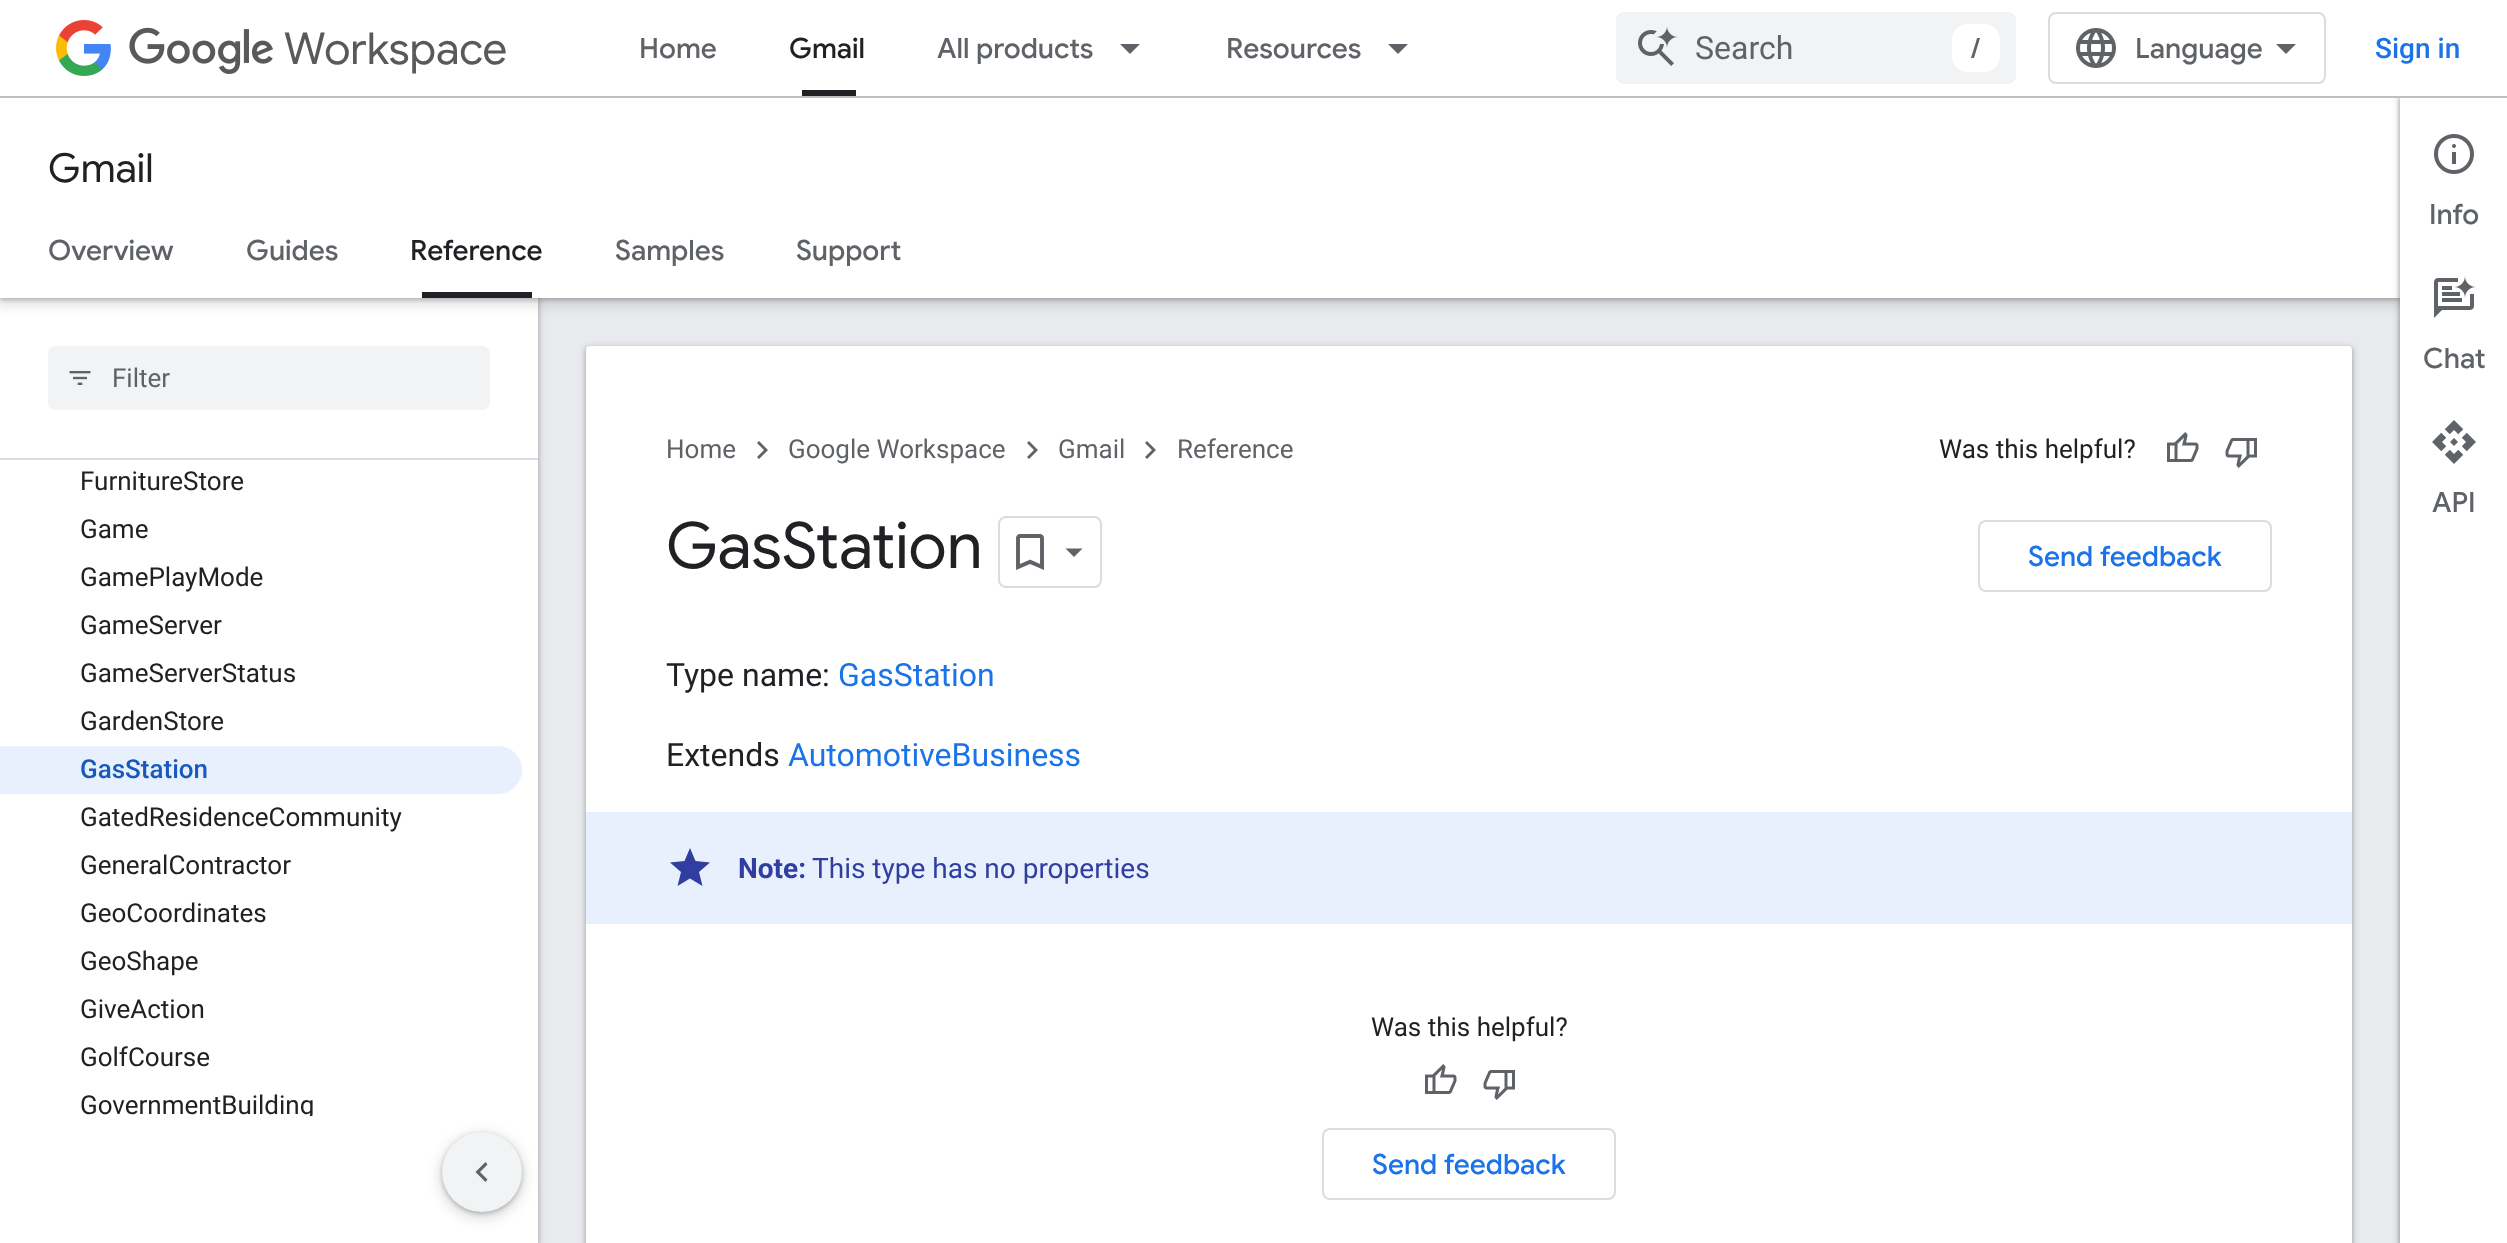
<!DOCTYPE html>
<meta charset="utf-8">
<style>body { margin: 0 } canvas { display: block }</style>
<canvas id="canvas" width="2507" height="1243"></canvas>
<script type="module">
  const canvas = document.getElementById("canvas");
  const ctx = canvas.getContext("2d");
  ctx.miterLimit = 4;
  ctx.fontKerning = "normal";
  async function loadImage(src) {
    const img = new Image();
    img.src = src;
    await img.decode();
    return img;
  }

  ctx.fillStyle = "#e8eaed";
  ctx.fillRect(0, 0, 2507, 1243);
  ctx.fillStyle = "rgba(60, 64, 67, 0.15)";
  ctx.filter = "blur(3px)";
  ctx.beginPath();
  ctx.rect(-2, 0, 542, 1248);
  ctx.fill();
  ctx.filter = "none";
  ctx.fillStyle = "rgba(60, 64, 67, 0.3)";
  ctx.filter = "blur(2px)";
  ctx.beginPath();
  ctx.rect(0, 2, 538, 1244);
  ctx.fill();
  ctx.filter = "none";
  ctx.fillStyle = "#ffffff";
  ctx.fillRect(0, 460, 538, 656);
  ctx.fillRect(0, 298, 538, 160);
  ctx.fillStyle = "rgba(60, 64, 67, 0.15)";
  ctx.filter = "blur(6px)";
  ctx.beginPath();
  ctx.rect(-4, 98, 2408, 208);
  ctx.fill();
  ctx.filter = "none";
  ctx.fillStyle = "rgba(60, 64, 67, 0.3)";
  ctx.filter = "blur(2px)";
  ctx.beginPath();
  ctx.rect(0, 100, 2400, 200);
  ctx.fill();
  ctx.filter = "none";
  ctx.fillStyle = "#ffffff";
  ctx.fillRect(0, 98, 2400, 200);
  ctx.fillStyle = "rgba(0, 0, 0, 0.15)";
  ctx.filter = "blur(3px)";
  ctx.beginPath();
  ctx.rect(2398, 96, 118, 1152);
  ctx.fill();
  ctx.filter = "none";
  ctx.fillStyle = "rgba(0, 0, 0, 0.3)";
  ctx.filter = "blur(2px)";
  ctx.beginPath();
  ctx.rect(2400, 98, 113, 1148);
  ctx.fill();
  ctx.filter = "none";
  ctx.fillStyle = "#ffffff";
  ctx.fillRect(0, 0, 2507, 96);
  ctx.fillStyle = "#bdc1c6";
  ctx.fillRect(0, 96, 2507, 2);
  ctx.drawImage(await loadImage("img1.png"), 56, 20, 55, 56);
  ctx.drawImage(await loadImage("img2.png"), 129, 27, 144, 47);
  ctx.font = "44px Google Sans";
  ctx.fillStyle = "#595959";
  ctx.fillText("Workspace", 284, 64);
  ctx.font = "500 28px Google Sans";
  ctx.fillStyle = "#5f6368";
  ctx.fillText("Home", 639, 58);
  ctx.fillStyle = "#202124";
  ctx.fillText("Gmail", 789, 58);
  ctx.fillRect(802, 90, 54, 6);
  ctx.fillStyle = "#5f6368";
  ctx.fillText("All products", 937, 58);
  ctx.beginPath();
  ctx.moveTo(1120, 44);
  ctx.lineTo(1140, 44);
  ctx.lineTo(1130, 54);
  ctx.closePath();
  ctx.fill();
  ctx.fillText("Resources", 1226, 58);
  ctx.beginPath();
  ctx.moveTo(1388, 44);
  ctx.lineTo(1408, 44);
  ctx.lineTo(1398, 54);
  ctx.closePath();
  ctx.fill();
  ctx.fillStyle = "#f1f3f4";
  ctx.beginPath();
  ctx.roundRect(1616, 12, 400, 72, 8);
  ctx.fill();
  ctx.drawImage(await loadImage("img3.png"), 1638, 26, 40, 40);
  ctx.font = "32px Roboto";
  ctx.fillStyle = "#5f6368";
  ctx.fillText("Search", 1695, 59);
  ctx.fillStyle = "#ffffff";
  ctx.beginPath();
  ctx.roundRect(1952, 24, 48, 48, 16);
  ctx.fill();
  ctx.font = "500 28px Google Sans";
  ctx.fillStyle = "#5f6368";
  ctx.fillText("/", 1971, 58);
  ctx.beginPath();
  ctx.roundRect(2049, 13, 276, 70, 7);
  ctx.strokeStyle = "#dadce0";
  ctx.lineWidth = 2;
  ctx.stroke();
  ctx.drawImage(await loadImage("img4.png"), 2076, 28, 40, 40);
  ctx.fillText("Language", 2135, 58);
  ctx.beginPath();
  ctx.moveTo(2286, 54);
  ctx.lineTo(2276, 44);
  ctx.lineTo(2296, 44);
  ctx.closePath();
  ctx.fill();
  ctx.font = "500 28px Roboto";
  ctx.fillStyle = "#1a73e8";
  ctx.fillText("Sign in", 2375, 58);
  ctx.font = "40px Google Sans";
  ctx.fillStyle = "#202124";
  ctx.fillText("Gmail", 48, 182);
  ctx.font = "500 28px Google Sans";
  ctx.fillStyle = "#5f6368";
  ctx.fillText("Overview", 48, 260);
  ctx.fillText("Guides", 246, 260);
  ctx.fillStyle = "#202124";
  ctx.fillText("Reference", 410, 260);
  ctx.fillRect(422, 292, 110, 6);
  ctx.fillStyle = "#5f6368";
  ctx.fillText("Samples", 615, 260);
  ctx.fillText("Support", 796, 260);
  ctx.fillStyle = "#dadce0";
  ctx.fillRect(0, 458, 538, 2);
  ctx.fillStyle = "#f1f3f4";
  ctx.beginPath();
  ctx.roundRect(48, 346, 442, 64, 8);
  ctx.fill();
  ctx.drawImage(await loadImage("img5.png"), 69, 371, 22, 14);
  ctx.font = "26px Roboto";
  ctx.fillStyle = "#5f6368";
  ctx.fillText("Filter", 112, 387);
  ctx.fillStyle = "#202124";
  ctx.fillText("FurnitureStore", 80, 490);
  ctx.fillText("Game", 80, 538);
  ctx.fillText("GamePlayMode", 80, 586);
  ctx.fillText("GameServer", 80, 634);
  ctx.fillText("GameServerStatus", 80, 682);
  ctx.fillText("GardenStore", 80, 730);
  ctx.fillStyle = "#e8f0fe";
  ctx.beginPath();
  ctx.roundRect(0, 746, 522, 48, [0, 24, 24, 0]);
  ctx.fill();
  ctx.font = "500 26px Roboto";
  ctx.fillStyle = "#185abc";
  ctx.fillText("GasStation", 80, 778);
  ctx.font = "26px Roboto";
  ctx.fillStyle = "#202124";
  ctx.fillText("GatedResidenceCommunity", 80, 826);
  ctx.fillText("GeneralContractor", 80, 874);
  ctx.fillText("GeoCoordinates", 80, 922);
  ctx.fillText("GeoShape", 80, 970);
  ctx.fillText("GiveAction", 80, 1018);
  ctx.fillText("GolfCourse", 80, 1066);
  ctx.fillText("GovernmentBuilding", 80, 1114);
  ctx.fillStyle = "#ffffff";
  ctx.fillRect(2400, 98, 107, 1145);
  ctx.drawImage(await loadImage("img6.png"), 2434, 134, 40, 40);
  ctx.font = "500 28px Google Sans";
  ctx.fillStyle = "#5f6368";
  ctx.fillText("Info", 2429, 224);
  ctx.drawImage(await loadImage("img7.png"), 2434, 276, 42, 42);
  ctx.fillText("Chat", 2423, 368);
  ctx.drawImage(await loadImage("img8.png"), 2432, 420, 44, 44);
  ctx.fillText("API", 2432, 512);
  ctx.fillStyle = "rgba(60, 64, 67, 0.15)";
  ctx.filter = "blur(3px)";
  ctx.beginPath();
  ctx.roundRect(584, 346, 1770, 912, 6);
  ctx.fill();
  ctx.filter = "none";
  ctx.fillStyle = "rgba(60, 64, 67, 0.3)";
  ctx.filter = "blur(2px)";
  ctx.beginPath();
  ctx.roundRect(586, 348, 1766, 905, 4);
  ctx.fill();
  ctx.filter = "none";
  ctx.fillStyle = "#ffffff";
  ctx.beginPath();
  ctx.roundRect(586, 346, 1766, 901, 4);
  ctx.fill();
  ctx.font = "26px Roboto";
  ctx.fillStyle = "#5f6368";
  ctx.fillText("Home", 666, 458);
  ctx.beginPath();
  ctx.moveTo(759, 441);
  ctx.lineTo(768, 450);
  ctx.lineTo(759, 459);
  ctx.lineTo(757, 457);
  ctx.lineTo(764, 450);
  ctx.lineTo(757, 443);
  ctx.closePath();
  ctx.fill();
  ctx.fillText("Google Workspace", 788, 458);
  ctx.beginPath();
  ctx.moveTo(1029, 441);
  ctx.lineTo(1038, 450);
  ctx.lineTo(1029, 459);
  ctx.lineTo(1027, 457);
  ctx.lineTo(1034, 450);
  ctx.lineTo(1027, 443);
  ctx.closePath();
  ctx.fill();
  ctx.fillText("Gmail", 1058, 458);
  ctx.beginPath();
  ctx.moveTo(1147, 441);
  ctx.lineTo(1156, 450);
  ctx.lineTo(1147, 459);
  ctx.lineTo(1145, 457);
  ctx.lineTo(1152, 450);
  ctx.lineTo(1145, 443);
  ctx.closePath();
  ctx.fill();
  ctx.fillText("Reference", 1177, 458);
  ctx.fillStyle = "#202124";
  ctx.fillText("Was this helpful?", 1939, 458);
  ctx.drawImage(await loadImage("img9.png"), 2167, 432, 32, 30);
  ctx.drawImage(await loadImage("img10.png"), 2225, 438, 32, 30);
  ctx.font = "64px Google Sans";
  ctx.fillText("GasStation", 666, 568);
  ctx.beginPath();
  ctx.roundRect(999, 517, 102, 70, 7);
  ctx.stroke();
  ctx.drawImage(await loadImage("img11.png"), 1016, 534, 28, 36);
  ctx.fillStyle = "#5f6368";
  ctx.beginPath();
  ctx.moveTo(1065.5, 548.5);
  ctx.lineTo(1082.5, 548.5);
  ctx.lineTo(1074, 557);
  ctx.closePath();
  ctx.fill();
  ctx.beginPath();
  ctx.roundRect(1979, 521, 292, 70, 7);
  ctx.stroke();
  ctx.font = "500 28px Google Sans";
  ctx.fillStyle = "#1a73e8";
  ctx.fillText("Send feedback", 2028, 566);
  ctx.font = "32px Roboto";
  ctx.fillStyle = "#202124";
  ctx.fillText("Type name:", 666, 686);
  ctx.fillStyle = "#1a73e8";
  ctx.fillText("GasStation", 838, 686);
  ctx.fillStyle = "#202124";
  ctx.fillText("Extends", 666, 766);
  ctx.fillStyle = "#1a73e8";
  ctx.fillText("AutomotiveBusiness", 788, 766);
  ctx.fillStyle = "#e8f0fe";
  ctx.fillRect(586, 812, 1766, 112);
  ctx.fillStyle = "#303f9f";
  ctx.beginPath();
  ctx.moveTo(690, 878.5);
  ctx.lineTo(677.5, 886);
  ctx.lineTo(681, 872);
  ctx.lineTo(670, 862.5);
  ctx.lineTo(684.5, 861);
  ctx.lineTo(690, 848);
  ctx.lineTo(695.5, 861);
  ctx.lineTo(710, 862.5);
  ctx.lineTo(699, 872);
  ctx.lineTo(702.5, 886);
  ctx.closePath();
  ctx.fill();
  ctx.font = "bold 28px Roboto";
  ctx.fillText("Note:", 738, 878);
  ctx.font = "28px Roboto";
  ctx.fillText("This type has no properties", 812, 878);
  ctx.font = "26px Roboto";
  ctx.fillStyle = "#202124";
  ctx.fillText("Was this helpful?", 1371, 1036);
  ctx.drawImage(await loadImage("img9.png"), 1425, 1064, 32, 30);
  ctx.drawImage(await loadImage("img10.png"), 1483, 1070, 32, 30);
  ctx.beginPath();
  ctx.roundRect(1323, 1129, 292, 70, 7);
  ctx.stroke();
  ctx.font = "500 28px Google Sans";
  ctx.fillStyle = "#1a73e8";
  ctx.fillText("Send feedback", 1372, 1174);
  ctx.fillStyle = "#ffffff";
  ctx.fillRect(0, 1116, 538, 127);
  ctx.fillStyle = "rgba(60, 64, 67, 0.15)";
  ctx.filter = "blur(6px)";
  ctx.beginPath();
  ctx.roundRect(438, 1132, 88, 88, 44);
  ctx.fill();
  ctx.filter = "none";
  ctx.fillStyle = "rgba(60, 64, 67, 0.3)";
  ctx.filter = "blur(2px)";
  ctx.beginPath();
  ctx.roundRect(442, 1134, 80, 80, 40);
  ctx.fill();
  ctx.filter = "none";
  ctx.fillStyle = "#f1f3f4";
  ctx.beginPath();
  ctx.arc(482, 1172, 40, 0, Math.PI * 2);
  ctx.fill();
  ctx.fillStyle = "#5f6368";
  ctx.beginPath();
  ctx.moveTo(487.5, 1164.5);
  ctx.lineTo(480, 1172);
  ctx.lineTo(487.5, 1179.5);
  ctx.lineTo(485.5, 1182);
  ctx.lineTo(475.5, 1172);
  ctx.lineTo(485.5, 1162);
  ctx.closePath();
  ctx.fill();
</script>
